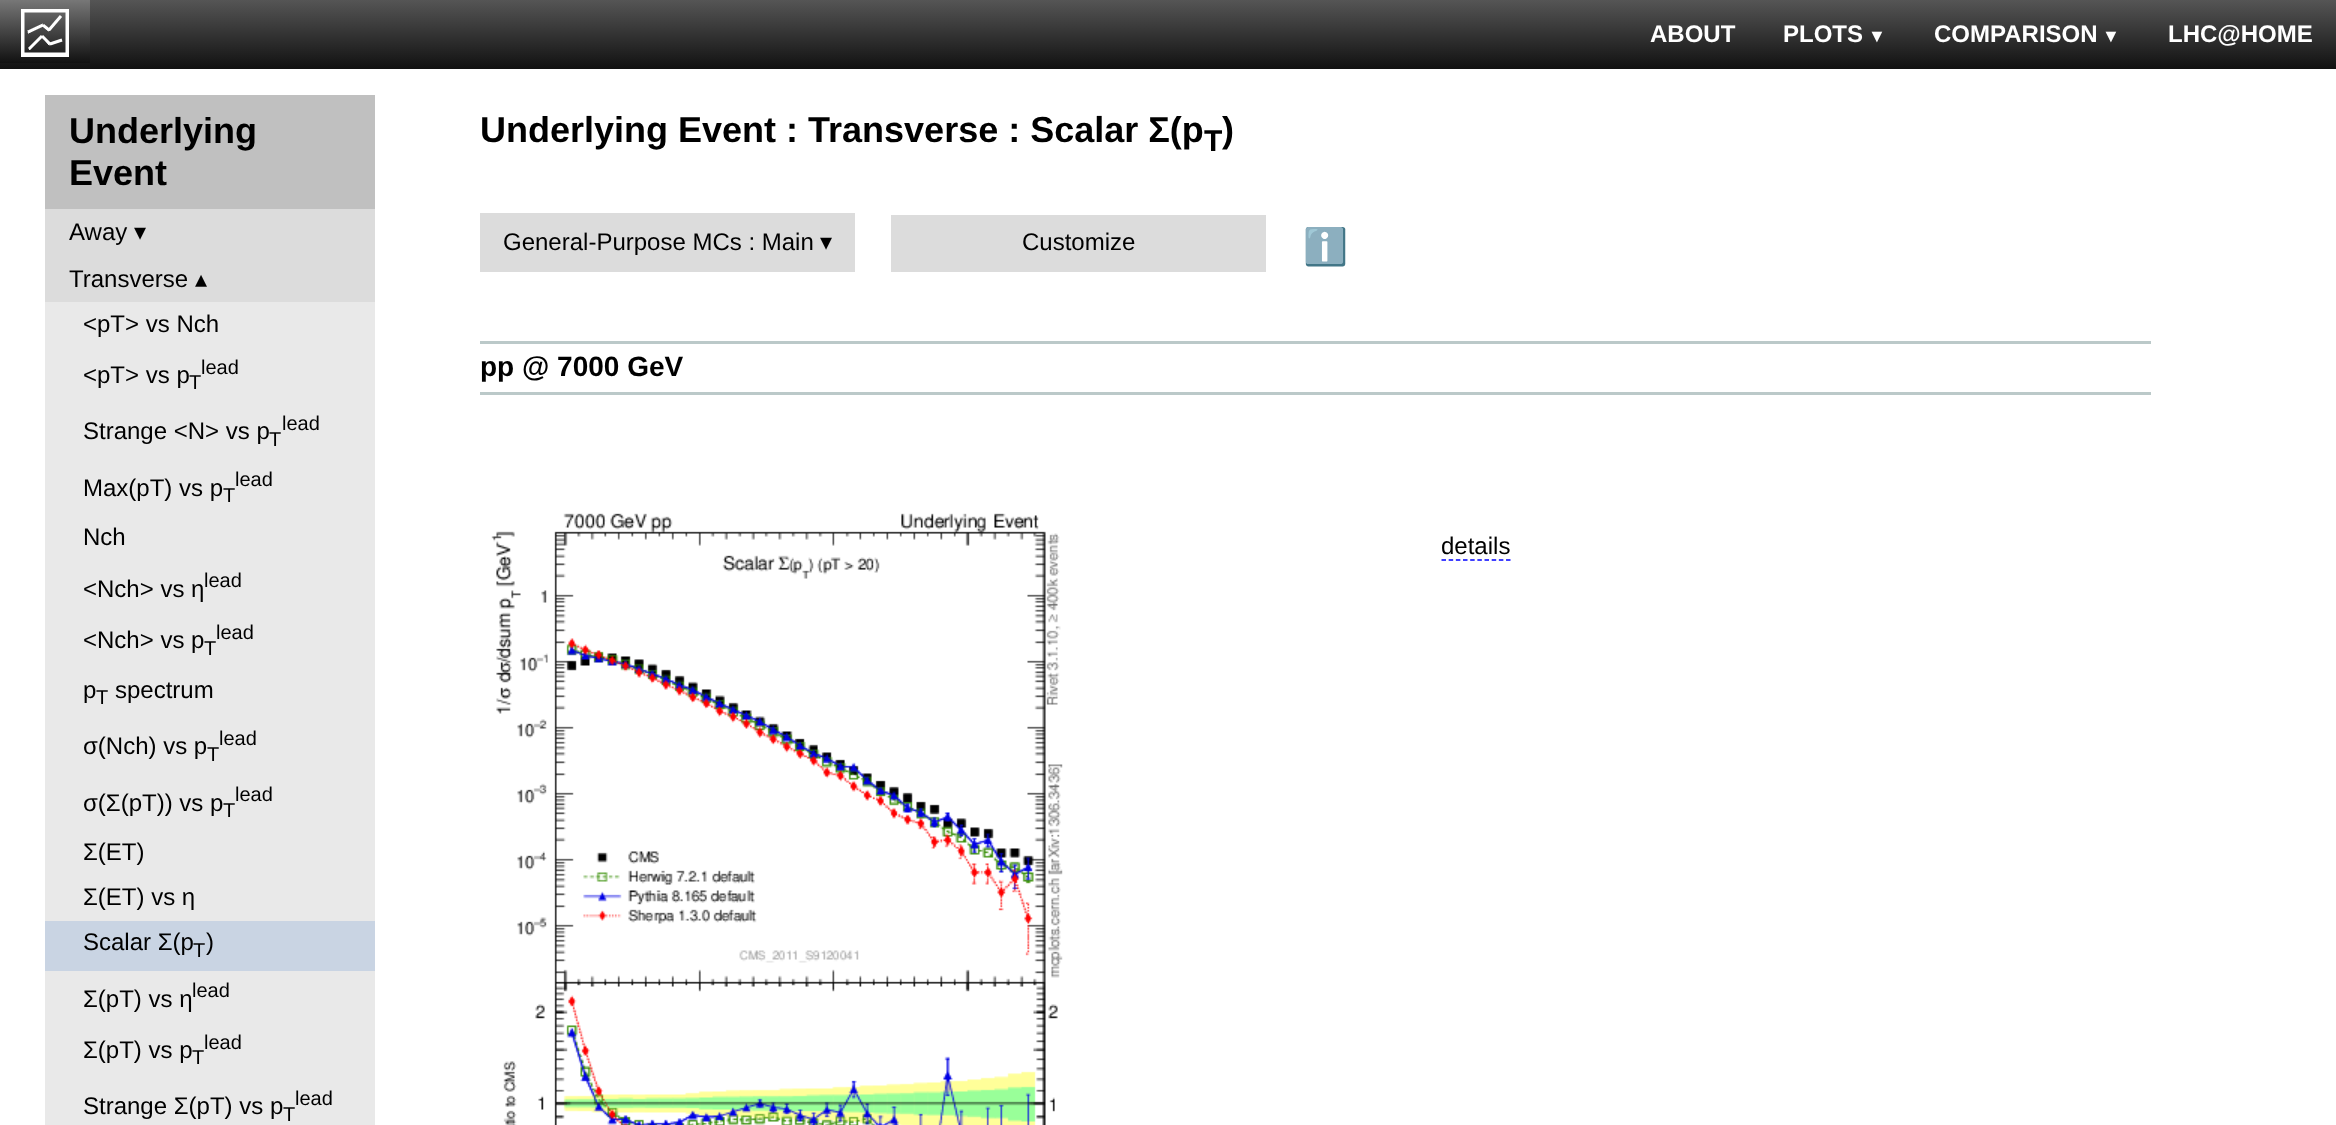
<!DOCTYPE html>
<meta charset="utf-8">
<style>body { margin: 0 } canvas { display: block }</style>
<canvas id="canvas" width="2336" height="1125"></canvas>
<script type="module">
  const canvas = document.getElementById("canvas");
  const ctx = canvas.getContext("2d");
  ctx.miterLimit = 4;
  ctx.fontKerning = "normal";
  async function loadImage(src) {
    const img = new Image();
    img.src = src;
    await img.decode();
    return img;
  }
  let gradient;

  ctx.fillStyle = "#ffffff";
  ctx.fillRect(0, 0, 2336, 1125);
  gradient = ctx.createLinearGradient(1169, 0, 1169, 69);
  gradient.addColorStop(0, "#555555");
  gradient.addColorStop(1, "#111111");
  ctx.fillStyle = gradient;
  ctx.fillRect(0, 0, 2336, 69);
  gradient = ctx.createLinearGradient(45, 0, 45, 63);
  gradient.addColorStop(0, "#777777");
  gradient.addColorStop(1, "#111111");
  ctx.fillStyle = gradient;
  ctx.fillRect(0, 0, 90, 63);
  ctx.drawImage(await loadImage("img1.png"), 21, 9, 48, 48);
  ctx.font = "bold 24px Liberation Sans";
  ctx.fillStyle = "#ffffff";
  ctx.fillText("ABOUT", 1650, 42);
  ctx.fillText("PLOTS", 1783, 42);
  ctx.font = "bold 18px Liberation Sans";
  ctx.fillText("▼", 1868, 42);
  ctx.font = "bold 24px Liberation Sans";
  ctx.fillText("COMPARISON", 1934, 42);
  ctx.font = "bold 18px Liberation Sans";
  ctx.fillText("▼", 2102, 42);
  ctx.font = "bold 24px Liberation Sans";
  ctx.fillText("LHC@HOME", 2168, 42);
  ctx.fillStyle = "#c0c0c0";
  ctx.fillRect(45, 95, 330, 114);
  ctx.font = "bold 36px Liberation Sans";
  ctx.fillStyle = "#000000";
  ctx.fillText("Underlying", 69, 143);
  ctx.fillText("Event", 69, 185);
  ctx.fillStyle = "#dcdcdc";
  ctx.fillRect(45, 209, 330, 93);
  ctx.font = "24px Liberation Sans";
  ctx.fillStyle = "#000000";
  ctx.fillText("Away", 69, 240);
  ctx.font = "24px DejaVu Sans";
  ctx.fillText("▾", 134, 240);
  ctx.font = "24px Liberation Sans";
  ctx.fillText("Transverse", 69, 287);
  ctx.font = "24px DejaVu Sans";
  ctx.fillText("▴", 195, 287);
  ctx.fillStyle = "#e9e9e9";
  ctx.fillRect(45, 302, 330, 619);
  ctx.font = "24px Liberation Sans";
  ctx.fillStyle = "#000000";
  ctx.fillText("<pT> vs Nch", 83, 332);
  ctx.fillText("<pT> vs p", 83, 383);
  ctx.font = "20px Liberation Sans";
  ctx.fillText("T", 189, 389);
  ctx.fillText("lead", 201, 374);
  ctx.font = "24px Liberation Sans";
  ctx.fillText("Strange <N> vs p", 83, 439);
  ctx.font = "20px Liberation Sans";
  ctx.fillText("T", 269, 446);
  ctx.fillText("lead", 282, 430);
  ctx.font = "24px Liberation Sans";
  ctx.fillText("Max(pT) vs p", 83, 496);
  ctx.font = "20px Liberation Sans";
  ctx.fillText("T", 223, 502);
  ctx.fillText("lead", 235, 486);
  ctx.font = "24px Liberation Sans";
  ctx.fillText("Nch", 83, 545);
  ctx.fillText("<Nch> vs η", 83, 597);
  ctx.font = "20px Liberation Sans";
  ctx.fillText("lead", 204, 587);
  ctx.font = "24px Liberation Sans";
  ctx.fillText("<Nch> vs p", 83, 648);
  ctx.font = "20px Liberation Sans";
  ctx.fillText("T", 204, 655);
  ctx.fillText("lead", 216, 639);
  ctx.font = "24px Liberation Sans";
  ctx.fillText("p", 83, 698);
  ctx.font = "20px Liberation Sans";
  ctx.fillText("T", 96, 704);
  ctx.font = "24px Liberation Sans";
  ctx.fillText("spectrum", 115, 698);
  ctx.fillText("σ(Nch) vs p", 83, 754);
  ctx.font = "20px Liberation Sans";
  ctx.fillText("T", 207, 761);
  ctx.fillText("lead", 219, 745);
  ctx.font = "24px Liberation Sans";
  ctx.fillText("σ(Σ(pT)) vs p", 83, 811);
  ctx.font = "20px Liberation Sans";
  ctx.fillText("T", 223, 817);
  ctx.fillText("lead", 235, 801);
  ctx.font = "24px Liberation Sans";
  ctx.fillText("Σ(ET)", 83, 860);
  ctx.fillText("Σ(ET) vs η", 83, 905);
  ctx.fillStyle = "#c9d4e3";
  ctx.fillRect(45, 921, 330, 50);
  ctx.fillStyle = "#000000";
  ctx.fillText("Scalar Σ(p", 83, 950);
  ctx.font = "20px Liberation Sans";
  ctx.fillText("T", 193, 957);
  ctx.font = "24px Liberation Sans";
  ctx.fillText(")", 206, 950);
  ctx.fillStyle = "#e9e9e9";
  ctx.fillRect(45, 971, 330, 154);
  ctx.fillStyle = "#000000";
  ctx.fillText("Σ(pT) vs η", 83, 1007);
  ctx.font = "20px Liberation Sans";
  ctx.fillText("lead", 192, 997);
  ctx.font = "24px Liberation Sans";
  ctx.fillText("Σ(pT) vs p", 83, 1058);
  ctx.font = "20px Liberation Sans";
  ctx.fillText("T", 192, 1064);
  ctx.fillText("lead", 204, 1049);
  ctx.font = "24px Liberation Sans";
  ctx.fillText("Strange Σ(pT) vs p", 83, 1114);
  ctx.font = "20px Liberation Sans";
  ctx.fillText("T", 283, 1121);
  ctx.fillText("lead", 295, 1105);
  ctx.font = "bold 36px Liberation Sans";
  ctx.fillText("Underlying Event : Transverse : Scalar Σ(p", 480, 142);
  ctx.font = "bold 30px Liberation Sans";
  ctx.fillText("T", 1204, 151);
  ctx.font = "bold 36px Liberation Sans";
  ctx.fillText(")", 1222, 142);
  ctx.fillStyle = "#dcdcdc";
  ctx.fillRect(480, 213, 375, 59);
  ctx.font = "24px Liberation Sans";
  ctx.fillStyle = "#000000";
  ctx.fillText("General-Purpose MCs : Main", 503, 250);
  ctx.font = "24px DejaVu Sans";
  ctx.fillText("▾", 820, 250);
  ctx.fillStyle = "#dcdcdc";
  ctx.fillRect(891, 215, 375, 57);
  ctx.font = "24px Liberation Sans";
  ctx.fillStyle = "#000000";
  ctx.fillText("Customize", 1022, 250);
  ctx.font = "36px Noto Color Emoji";
  ctx.fillText("ℹ️", 1303, 259);
  ctx.fillStyle = "#bbc9c9";
  ctx.fillRect(480, 341, 1671, 3);
  ctx.fillRect(480, 392, 1671, 3);
  ctx.font = "bold 28px Liberation Sans";
  ctx.fillStyle = "#000000";
  ctx.fillText("pp @ 7000 GeV", 480, 376);
  ctx.drawImage(await loadImage("img2.png"), 491, 513, 572, 612);
  ctx.font = "24px Liberation Sans";
  ctx.fillText("details", 1441, 554);
  ctx.beginPath();
  ctx.moveTo(1441.5, 560);
  ctx.lineTo(1510.5, 560);
  ctx.strokeStyle = "#0000ff";
  ctx.lineWidth = 1.5;
  ctx.setLineDash([4.5, 2.67]);
  ctx.stroke();
</script>
